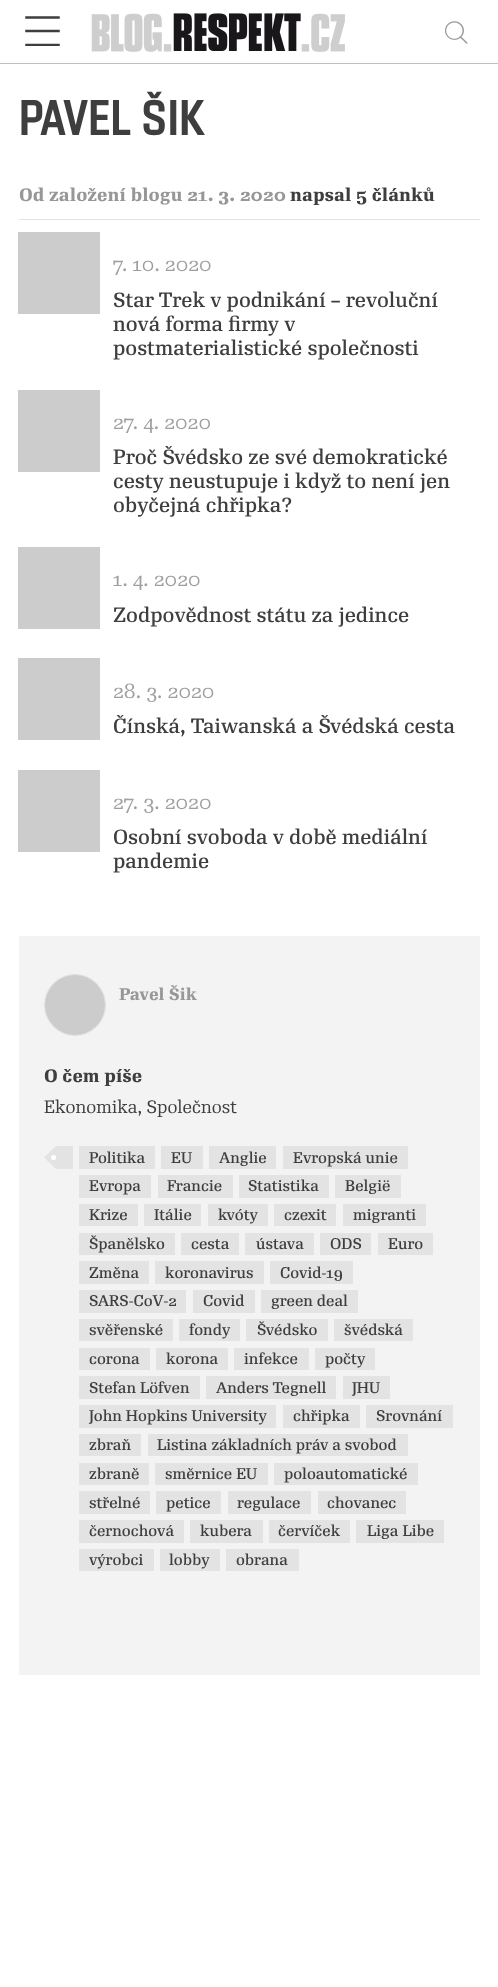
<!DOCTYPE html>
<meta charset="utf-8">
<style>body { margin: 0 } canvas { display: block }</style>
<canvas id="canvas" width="498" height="1987"></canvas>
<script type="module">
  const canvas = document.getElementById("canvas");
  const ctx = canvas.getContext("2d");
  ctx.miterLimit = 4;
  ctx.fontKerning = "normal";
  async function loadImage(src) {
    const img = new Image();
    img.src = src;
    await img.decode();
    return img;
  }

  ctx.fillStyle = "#ffffff";
  ctx.fillRect(0, 0, 498, 1987);
  ctx.fillStyle = "#c0c0c0";
  ctx.fillRect(0, 63, 498, 1);
  ctx.save();
  ctx.beginPath();
  ctx.rect(25, 16, 35, 30);
  ctx.clip();
  ctx.beginPath();
  ctx.moveTo(26.5, 17.5);
  ctx.lineTo(58.5, 17.5);
  ctx.moveTo(26.5, 31);
  ctx.lineTo(58.5, 31);
  ctx.moveTo(26.5, 45);
  ctx.lineTo(58.5, 45);
  ctx.strokeStyle = "#3e3e3e";
  ctx.lineWidth = 2.5;
  ctx.lineCap = "square";
  ctx.stroke();
  ctx.restore();
  ctx.drawImage(await loadImage("img1.png"), 91, 13, 254, 39);
  ctx.drawImage(await loadImage("img2.png"), 445, 21, 23, 23);
  ctx.font = "50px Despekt";
  ctx.fillStyle = "#3e3e3e";
  ctx.fillText("PAVEL ŠIK", 19, 135);
  ctx.fillStyle = "#e3e3e3";
  ctx.fillRect(19, 219, 461, 1);
  ctx.font = "500 17.5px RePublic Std";
  ctx.fillStyle = "#979797";
  ctx.fillText("Od založení blogu 21. 3. 2020", 19, 201);
  ctx.fillStyle = "#3e3e3e";
  ctx.fillText("napsal 5 článků", 290, 201);
  ctx.fillStyle = "#cccccc";
  ctx.fillRect(18, 232, 82, 82);
  ctx.font = "20px RePublic Std";
  ctx.fillStyle = "#9f9f9f";
  ctx.fillText("7. 10. 2020", 113, 271);
  ctx.font = "500 20px 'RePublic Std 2'";
  ctx.fillStyle = "#3e3e3e";
  ctx.fillText("Star Trek v podnikání – revoluční", 113, 307);
  ctx.fillText("nová forma firmy v", 113, 331);
  ctx.fillText("postmaterialistické společnosti", 113, 355);
  ctx.fillStyle = "#cccccc";
  ctx.fillRect(18, 390, 82, 82);
  ctx.font = "20px RePublic Std";
  ctx.fillStyle = "#9f9f9f";
  ctx.fillText("27. 4. 2020", 113, 429);
  ctx.font = "500 20px 'RePublic Std 2'";
  ctx.fillStyle = "#3e3e3e";
  ctx.fillText("Proč Švédsko ze své demokratické", 113, 464);
  ctx.fillText("cesty neustupuje i když to není jen", 113, 488);
  ctx.fillText("obyčejná chřipka?", 113, 512);
  ctx.fillStyle = "#cccccc";
  ctx.fillRect(18, 547, 82, 82);
  ctx.font = "20px RePublic Std";
  ctx.fillStyle = "#9f9f9f";
  ctx.fillText("1. 4. 2020", 113, 586);
  ctx.font = "500 20px 'RePublic Std 2'";
  ctx.fillStyle = "#3e3e3e";
  ctx.fillText("Zodpovědnost státu za jedince", 113, 622);
  ctx.fillStyle = "#cccccc";
  ctx.fillRect(18, 658, 82, 82);
  ctx.font = "20px RePublic Std";
  ctx.fillStyle = "#9f9f9f";
  ctx.fillText("28. 3. 2020", 113, 698);
  ctx.font = "500 20px 'RePublic Std 2'";
  ctx.fillStyle = "#3e3e3e";
  ctx.fillText("Čínská, Taiwanská a Švédská cesta", 113, 733);
  ctx.fillStyle = "#cccccc";
  ctx.fillRect(18, 770, 82, 82);
  ctx.font = "20px RePublic Std";
  ctx.fillStyle = "#9f9f9f";
  ctx.fillText("27. 3. 2020", 113, 809);
  ctx.font = "500 20px 'RePublic Std 2'";
  ctx.fillStyle = "#3e3e3e";
  ctx.fillText("Osobní svoboda v době mediální", 113, 844);
  ctx.fillText("pandemie", 113, 868);
  ctx.fillStyle = "#f3f3f3";
  ctx.fillRect(19, 936, 461, 739);
  ctx.beginPath();
  ctx.arc(75, 1005, 30.5, 0, Math.PI * 2);
  ctx.strokeStyle = "#e0e0e0";
  ctx.stroke();
  ctx.drawImage(await loadImage("img3.png"), 45, 975, 60, 60);
  ctx.font = "500 16.25px RePublic Std";
  ctx.fillStyle = "#979797";
  ctx.fillText("Pavel Šik", 119, 1000);
  ctx.font = "500 17.5px RePublic Std";
  ctx.fillStyle = "#3e3e3e";
  ctx.fillText("O čem píše", 44, 1082);
  ctx.font = "17.5px RePublic Std";
  ctx.fillText("Ekonomika, Společnost", 44, 1113);
  ctx.fillStyle = "#e3e3e3";
  ctx.fillRect(56, 1146, 17, 23);
  ctx.beginPath();
  ctx.moveTo(56, 1146);
  ctx.lineTo(56, 1169);
  ctx.lineTo(44, 1157.5);
  ctx.closePath();
  ctx.fill();
  ctx.fillStyle = "#ffffff";
  ctx.beginPath();
  ctx.arc(53.5, 1157.5, 2.5, 0, Math.PI * 2);
  ctx.fill();
  ctx.fillStyle = "#e3e3e3";
  ctx.fillRect(79, 1146, 76, 23);
  ctx.font = "500 15px 'RePublic Std 2'";
  ctx.fillStyle = "#3e3e3e";
  ctx.fillText("Politika", 89, 1163);
  ctx.fillStyle = "#e3e3e3";
  ctx.fillRect(161, 1146, 42, 23);
  ctx.fillStyle = "#3e3e3e";
  ctx.fillText("EU", 171, 1163);
  ctx.fillStyle = "#e3e3e3";
  ctx.fillRect(209, 1146, 67, 23);
  ctx.fillStyle = "#3e3e3e";
  ctx.fillText("Anglie", 219, 1163);
  ctx.fillStyle = "#e3e3e3";
  ctx.fillRect(283, 1146, 125, 23);
  ctx.fillStyle = "#3e3e3e";
  ctx.fillText("Evropská unie", 293, 1163);
  ctx.fillStyle = "#e3e3e3";
  ctx.fillRect(79, 1175, 72, 23);
  ctx.fillStyle = "#3e3e3e";
  ctx.fillText("Evropa", 89, 1191);
  ctx.fillStyle = "#e3e3e3";
  ctx.fillRect(158, 1175, 75, 23);
  ctx.fillStyle = "#3e3e3e";
  ctx.fillText("Francie", 167, 1191);
  ctx.fillStyle = "#e3e3e3";
  ctx.fillRect(239, 1175, 90, 23);
  ctx.fillStyle = "#3e3e3e";
  ctx.fillText("Statistika", 248, 1191);
  ctx.fillStyle = "#e3e3e3";
  ctx.fillRect(335, 1175, 66, 23);
  ctx.fillStyle = "#3e3e3e";
  ctx.fillText("België", 345, 1191);
  ctx.fillStyle = "#e3e3e3";
  ctx.fillRect(79, 1204, 59, 22);
  ctx.fillStyle = "#3e3e3e";
  ctx.fillText("Krize", 89, 1220);
  ctx.fillStyle = "#e3e3e3";
  ctx.fillRect(144, 1204, 57, 22);
  ctx.fillStyle = "#3e3e3e";
  ctx.fillText("Itálie", 154, 1220);
  ctx.fillStyle = "#e3e3e3";
  ctx.fillRect(208, 1204, 60, 22);
  ctx.fillStyle = "#3e3e3e";
  ctx.fillText("kvóty", 218, 1220);
  ctx.fillStyle = "#e3e3e3";
  ctx.fillRect(274, 1204, 62, 22);
  ctx.fillStyle = "#3e3e3e";
  ctx.fillText("czexit", 284, 1220);
  ctx.fillStyle = "#e3e3e3";
  ctx.fillRect(343, 1204, 83, 22);
  ctx.fillStyle = "#3e3e3e";
  ctx.fillText("migranti", 353, 1220);
  ctx.fillStyle = "#e3e3e3";
  ctx.fillRect(79, 1233, 96, 22);
  ctx.fillStyle = "#3e3e3e";
  ctx.fillText("Španělsko", 89, 1249);
  ctx.fillStyle = "#e3e3e3";
  ctx.fillRect(181, 1233, 58, 22);
  ctx.fillStyle = "#3e3e3e";
  ctx.fillText("cesta", 191, 1249);
  ctx.fillStyle = "#e3e3e3";
  ctx.fillRect(245, 1233, 69, 22);
  ctx.fillStyle = "#3e3e3e";
  ctx.fillText("ústava", 256, 1249);
  ctx.fillStyle = "#e3e3e3";
  ctx.fillRect(320, 1233, 51, 22);
  ctx.fillStyle = "#3e3e3e";
  ctx.fillText("ODS", 330, 1249);
  ctx.fillStyle = "#e3e3e3";
  ctx.fillRect(378, 1233, 55, 22);
  ctx.fillStyle = "#3e3e3e";
  ctx.fillText("Euro", 388, 1249);
  ctx.fillStyle = "#e3e3e3";
  ctx.fillRect(79, 1261, 70, 23);
  ctx.fillStyle = "#3e3e3e";
  ctx.fillText("Změna", 89, 1278);
  ctx.fillStyle = "#e3e3e3";
  ctx.fillRect(155, 1261, 109, 23);
  ctx.fillStyle = "#3e3e3e";
  ctx.fillText("koronavirus", 165, 1278);
  ctx.fillStyle = "#e3e3e3";
  ctx.fillRect(270, 1261, 83, 23);
  ctx.fillStyle = "#3e3e3e";
  ctx.fillText("Covid-19", 280, 1278);
  ctx.fillStyle = "#e3e3e3";
  ctx.fillRect(79, 1290, 107, 23);
  ctx.fillStyle = "#3e3e3e";
  ctx.fillText("SARS-CoV-2", 89, 1306);
  ctx.fillStyle = "#e3e3e3";
  ctx.fillRect(193, 1290, 62, 23);
  ctx.fillStyle = "#3e3e3e";
  ctx.fillText("Covid", 203, 1306);
  ctx.fillStyle = "#e3e3e3";
  ctx.fillRect(261, 1290, 97, 23);
  ctx.fillStyle = "#3e3e3e";
  ctx.fillText("green deal", 271, 1306);
  ctx.fillStyle = "#e3e3e3";
  ctx.fillRect(79, 1319, 94, 22);
  ctx.fillStyle = "#3e3e3e";
  ctx.fillText("svěřenské", 89, 1335);
  ctx.fillStyle = "#e3e3e3";
  ctx.fillRect(179, 1319, 61, 22);
  ctx.fillStyle = "#3e3e3e";
  ctx.fillText("fondy", 189, 1335);
  ctx.fillStyle = "#e3e3e3";
  ctx.fillRect(246, 1319, 82, 22);
  ctx.fillStyle = "#3e3e3e";
  ctx.fillText("Švédsko", 257, 1335);
  ctx.fillStyle = "#e3e3e3";
  ctx.fillRect(334, 1319, 79, 22);
  ctx.fillStyle = "#3e3e3e";
  ctx.fillText("švédská", 344, 1335);
  ctx.fillStyle = "#e3e3e3";
  ctx.fillRect(79, 1348, 71, 22);
  ctx.fillStyle = "#3e3e3e";
  ctx.fillText("corona", 89, 1364);
  ctx.fillStyle = "#e3e3e3";
  ctx.fillRect(156, 1348, 72, 22);
  ctx.fillStyle = "#3e3e3e";
  ctx.fillText("korona", 166, 1364);
  ctx.fillStyle = "#e3e3e3";
  ctx.fillRect(234, 1348, 75, 22);
  ctx.fillStyle = "#3e3e3e";
  ctx.fillText("infekce", 244, 1364);
  ctx.fillStyle = "#e3e3e3";
  ctx.fillRect(315, 1348, 60, 22);
  ctx.fillStyle = "#3e3e3e";
  ctx.fillText("počty", 325, 1364);
  ctx.fillStyle = "#e3e3e3";
  ctx.fillRect(79, 1376, 121, 23);
  ctx.fillStyle = "#3e3e3e";
  ctx.fillText("Stefan Löfven", 89, 1393);
  ctx.fillStyle = "#e3e3e3";
  ctx.fillRect(206, 1376, 130, 23);
  ctx.fillStyle = "#3e3e3e";
  ctx.fillText("Anders Tegnell", 216, 1393);
  ctx.fillStyle = "#e3e3e3";
  ctx.fillRect(343, 1376, 47, 23);
  ctx.fillStyle = "#3e3e3e";
  ctx.fillText("JHU", 352, 1393);
  ctx.fillStyle = "#e3e3e3";
  ctx.fillRect(79, 1405, 197, 23);
  ctx.fillStyle = "#3e3e3e";
  ctx.fillText("John Hopkins University", 89, 1421);
  ctx.fillStyle = "#e3e3e3";
  ctx.fillRect(283, 1405, 77, 23);
  ctx.fillStyle = "#3e3e3e";
  ctx.fillText("chřipka", 293, 1421);
  ctx.fillStyle = "#e3e3e3";
  ctx.fillRect(366, 1405, 87, 23);
  ctx.fillStyle = "#3e3e3e";
  ctx.fillText("Srovnání", 376, 1421);
  ctx.fillStyle = "#e3e3e3";
  ctx.fillRect(79, 1434, 62, 22);
  ctx.fillStyle = "#3e3e3e";
  ctx.fillText("zbraň", 89, 1450);
  ctx.fillStyle = "#e3e3e3";
  ctx.fillRect(148, 1434, 260, 22);
  ctx.fillStyle = "#3e3e3e";
  ctx.fillText("Listina základních práv a svobod", 157, 1450);
  ctx.fillStyle = "#e3e3e3";
  ctx.fillRect(79, 1463, 70, 22);
  ctx.fillStyle = "#3e3e3e";
  ctx.fillText("zbraně", 89, 1479);
  ctx.fillStyle = "#e3e3e3";
  ctx.fillRect(155, 1463, 113, 22);
  ctx.fillStyle = "#3e3e3e";
  ctx.fillText("směrnice EU", 165, 1479);
  ctx.fillStyle = "#e3e3e3";
  ctx.fillRect(274, 1463, 144, 22);
  ctx.fillStyle = "#3e3e3e";
  ctx.fillText("poloautomatické", 284, 1479);
  ctx.fillStyle = "#e3e3e3";
  ctx.fillRect(79, 1491, 71, 23);
  ctx.fillStyle = "#3e3e3e";
  ctx.fillText("střelné", 89, 1508);
  ctx.fillStyle = "#e3e3e3";
  ctx.fillRect(156, 1491, 65, 23);
  ctx.fillStyle = "#3e3e3e";
  ctx.fillText("petice", 166, 1508);
  ctx.fillStyle = "#e3e3e3";
  ctx.fillRect(228, 1491, 83, 23);
  ctx.fillStyle = "#3e3e3e";
  ctx.fillText("regulace", 237, 1508);
  ctx.fillStyle = "#e3e3e3";
  ctx.fillRect(318, 1491, 88, 23);
  ctx.fillStyle = "#3e3e3e";
  ctx.fillText("chovanec", 327, 1508);
  ctx.fillStyle = "#e3e3e3";
  ctx.fillRect(79, 1520, 105, 23);
  ctx.fillStyle = "#3e3e3e";
  ctx.fillText("černochová", 89, 1536);
  ctx.fillStyle = "#e3e3e3";
  ctx.fillRect(190, 1520, 73, 23);
  ctx.fillStyle = "#3e3e3e";
  ctx.fillText("kubera", 200, 1536);
  ctx.fillStyle = "#e3e3e3";
  ctx.fillRect(269, 1520, 81, 23);
  ctx.fillStyle = "#3e3e3e";
  ctx.fillText("červíček", 278, 1536);
  ctx.fillStyle = "#e3e3e3";
  ctx.fillRect(356, 1520, 88, 23);
  ctx.fillStyle = "#3e3e3e";
  ctx.fillText("Liga Libe", 367, 1536);
  ctx.fillStyle = "#e3e3e3";
  ctx.fillRect(79, 1549, 75, 22);
  ctx.fillStyle = "#3e3e3e";
  ctx.fillText("výrobci", 89, 1565);
  ctx.fillStyle = "#e3e3e3";
  ctx.fillRect(160, 1549, 60, 22);
  ctx.fillStyle = "#3e3e3e";
  ctx.fillText("lobby", 169, 1565);
  ctx.fillStyle = "#e3e3e3";
  ctx.fillRect(226, 1549, 73, 22);
  ctx.fillStyle = "#3e3e3e";
  ctx.fillText("obrana", 236, 1565);
</script>
